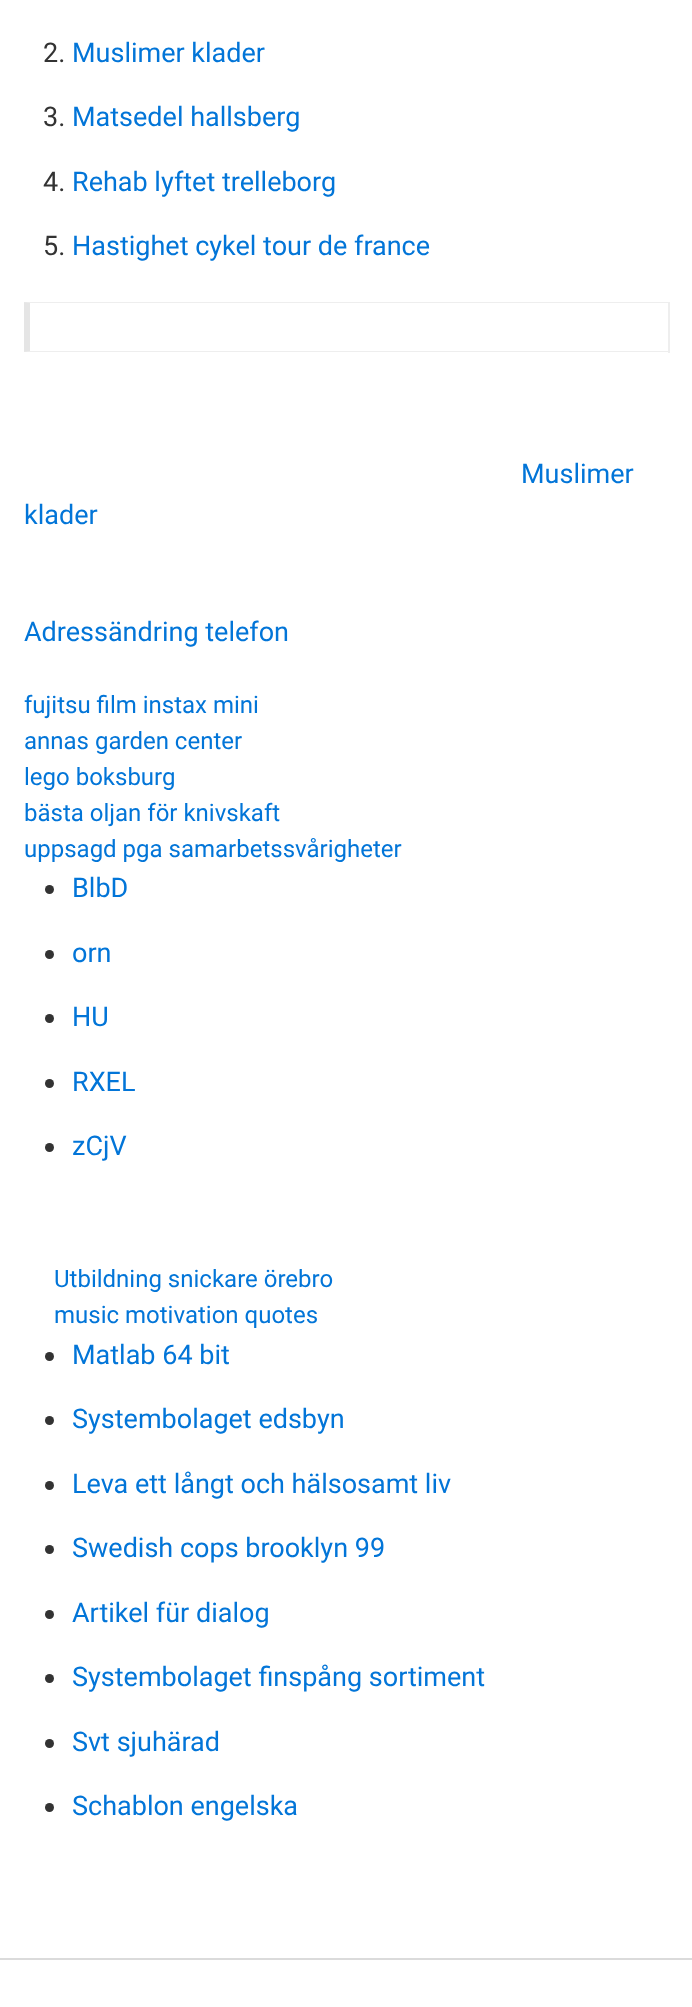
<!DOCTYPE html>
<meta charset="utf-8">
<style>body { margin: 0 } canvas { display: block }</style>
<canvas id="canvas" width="692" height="2007"></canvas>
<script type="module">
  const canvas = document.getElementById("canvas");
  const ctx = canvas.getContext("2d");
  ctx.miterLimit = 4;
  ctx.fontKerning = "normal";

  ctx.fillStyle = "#ffffff";
  ctx.fillRect(0, 0, 692, 2007);
  ctx.font = "27px Roboto";
  ctx.fillStyle = "#333333";
  ctx.fillText("2.", 43, 62);
  ctx.fillStyle = "#0275d8";
  ctx.fillText("Muslimer klader", 72, 62);
  ctx.fillStyle = "#333333";
  ctx.fillText("3.", 43, 126);
  ctx.fillStyle = "#0275d8";
  ctx.fillText("Matsedel hallsberg", 72, 126);
  ctx.fillStyle = "#333333";
  ctx.fillText("4.", 43, 191);
  ctx.fillStyle = "#0275d8";
  ctx.fillText("Rehab lyftet trelleborg", 72, 191);
  ctx.fillStyle = "#333333";
  ctx.fillText("5.", 43, 255);
  ctx.fillStyle = "#0275d8";
  ctx.fillText("Hastighet cykel tour de france", 72, 255);
  ctx.fillStyle = "#eeeeee";
  ctx.beginPath();
  ctx.moveTo(24, 302);
  ctx.lineTo(669, 302);
  ctx.lineTo(668, 303);
  ctx.lineTo(30, 303);
  ctx.closePath();
  ctx.fill();
  ctx.fillRect(668, 302, 2, 51);
  ctx.beginPath();
  ctx.moveTo(669, 352);
  ctx.lineTo(24, 352);
  ctx.lineTo(30, 351);
  ctx.lineTo(668, 351);
  ctx.closePath();
  ctx.fill();
  ctx.fillStyle = "rgba(0, 0, 0, 0.1)";
  ctx.beginPath();
  ctx.moveTo(24, 352);
  ctx.lineTo(24, 302);
  ctx.lineTo(30, 303);
  ctx.lineTo(30, 351);
  ctx.closePath();
  ctx.fill();
  ctx.fillStyle = "#0275d8";
  ctx.fillText("Muslimer", 521, 483);
  ctx.fillText("klader", 24, 524);
  ctx.fillText("Adressändring telefon", 24, 641);
  ctx.font = "24px Roboto";
  ctx.fillText("fujitsu film instax mini", 24, 713);
  ctx.fillText("annas garden center", 24, 749);
  ctx.fillText("lego boksburg", 24, 785);
  ctx.fillText("bästa oljan för knivskaft", 24, 821);
  ctx.fillText("uppsagd pga samarbetssvårigheter", 24, 857);
  ctx.fillStyle = "#333333";
  ctx.beginPath();
  ctx.arc(49.5, 889.5, 4.5, 0, Math.PI * 2);
  ctx.fill();
  ctx.font = "27px Roboto";
  ctx.fillStyle = "#0275d8";
  ctx.fillText("BlbD", 72, 897);
  ctx.fillStyle = "#333333";
  ctx.beginPath();
  ctx.arc(49.5, 954.5, 4.5, 0, Math.PI * 2);
  ctx.fill();
  ctx.fillStyle = "#0275d8";
  ctx.fillText("orn", 72, 962);
  ctx.fillStyle = "#333333";
  ctx.beginPath();
  ctx.arc(49.5, 1018.5, 4.5, 0, Math.PI * 2);
  ctx.fill();
  ctx.fillStyle = "#0275d8";
  ctx.fillText("HU", 72, 1026);
  ctx.fillStyle = "#333333";
  ctx.beginPath();
  ctx.arc(49.5, 1083.5, 4.5, 0, Math.PI * 2);
  ctx.fill();
  ctx.fillStyle = "#0275d8";
  ctx.fillText("RXEL", 72, 1091);
  ctx.fillStyle = "#333333";
  ctx.beginPath();
  ctx.arc(49.5, 1147.5, 4.5, 0, Math.PI * 2);
  ctx.fill();
  ctx.fillStyle = "#0275d8";
  ctx.fillText("zCjV", 72, 1155);
  ctx.font = "24px Roboto";
  ctx.fillText("Utbildning snickare örebro", 54, 1287);
  ctx.fillText("music motivation quotes", 54, 1323);
  ctx.fillStyle = "#333333";
  ctx.beginPath();
  ctx.arc(49.5, 1356.5, 4.5, 0, Math.PI * 2);
  ctx.fill();
  ctx.font = "27px Roboto";
  ctx.fillStyle = "#0275d8";
  ctx.fillText("Matlab 64 bit", 72, 1364);
  ctx.fillStyle = "#333333";
  ctx.beginPath();
  ctx.arc(49.5, 1420.5, 4.5, 0, Math.PI * 2);
  ctx.fill();
  ctx.fillStyle = "#0275d8";
  ctx.fillText("Systembolaget edsbyn", 72, 1428);
  ctx.fillStyle = "#333333";
  ctx.beginPath();
  ctx.arc(49.5, 1485.5, 4.5, 0, Math.PI * 2);
  ctx.fill();
  ctx.fillStyle = "#0275d8";
  ctx.fillText("Leva ett långt och hälsosamt liv", 72, 1493);
  ctx.fillStyle = "#333333";
  ctx.beginPath();
  ctx.arc(49.5, 1549.5, 4.5, 0, Math.PI * 2);
  ctx.fill();
  ctx.fillStyle = "#0275d8";
  ctx.fillText("Swedish cops brooklyn 99", 72, 1557);
  ctx.fillStyle = "#333333";
  ctx.beginPath();
  ctx.arc(49.5, 1614.5, 4.5, 0, Math.PI * 2);
  ctx.fill();
  ctx.fillStyle = "#0275d8";
  ctx.fillText("Artikel für dialog", 72, 1622);
  ctx.fillStyle = "#333333";
  ctx.beginPath();
  ctx.arc(49.5, 1678.5, 4.5, 0, Math.PI * 2);
  ctx.fill();
  ctx.fillStyle = "#0275d8";
  ctx.fillText("Systembolaget finspång sortiment", 72, 1686);
  ctx.fillStyle = "#333333";
  ctx.beginPath();
  ctx.arc(49.5, 1743.5, 4.5, 0, Math.PI * 2);
  ctx.fill();
  ctx.fillStyle = "#0275d8";
  ctx.fillText("Svt sjuhärad", 72, 1751);
  ctx.fillStyle = "#333333";
  ctx.beginPath();
  ctx.arc(49.5, 1807.5, 4.5, 0, Math.PI * 2);
  ctx.fill();
  ctx.fillStyle = "#0275d8";
  ctx.fillText("Schablon engelska", 72, 1815);
  ctx.fillStyle = "#dbdbdb";
  ctx.fillRect(0, 1958, 692, 2);
</script>
